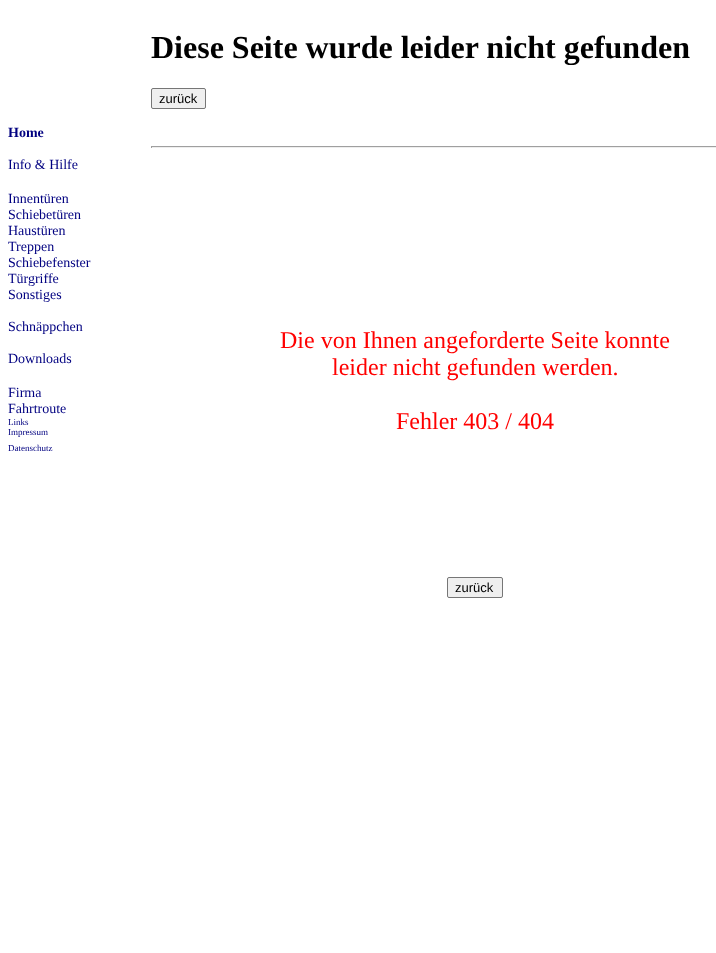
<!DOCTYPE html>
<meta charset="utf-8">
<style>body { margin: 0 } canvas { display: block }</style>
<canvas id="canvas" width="716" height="953"></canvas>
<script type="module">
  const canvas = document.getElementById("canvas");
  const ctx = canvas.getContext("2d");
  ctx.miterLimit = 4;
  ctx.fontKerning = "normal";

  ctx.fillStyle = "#ffffff";
  ctx.fillRect(0, 0, 716, 953);
  ctx.font = "bold 14px Liberation Serif";
  ctx.fillStyle = "#000080";
  ctx.fillText("Home", 8, 137);
  ctx.font = "14px Liberation Serif";
  ctx.fillText("Info & Hilfe", 8, 169);
  ctx.fillText("Innentüren", 8, 203);
  ctx.fillText("Schiebetüren", 8, 219);
  ctx.fillText("Haustüren", 8, 235);
  ctx.fillText("Treppen", 8, 251);
  ctx.fillText("Schiebefenster", 8, 267);
  ctx.fillText("Türgriffe", 8, 283);
  ctx.fillText("Sonstiges", 8, 299);
  ctx.fillText("Schnäppchen", 8, 331);
  ctx.fillText("Downloads", 8, 363);
  ctx.fillText("Firma", 8, 397);
  ctx.fillText("Fahrtroute", 8, 413);
  ctx.font = "9px Liberation Serif";
  ctx.fillText("Links", 8, 425);
  ctx.fillText("Impressum", 8, 435);
  ctx.fillText("Datenschutz", 8, 451);
  ctx.font = "bold 32px Liberation Serif";
  ctx.fillStyle = "#000000";
  ctx.fillText("Diese Seite wurde leider nicht gefunden", 151, 58);
  ctx.fillStyle = "#efefef";
  ctx.beginPath();
  ctx.roundRect(151.5, 88.5, 54, 20, 1.5);
  ctx.fill();
  ctx.strokeStyle = "#767676";
  ctx.stroke();
  ctx.font = "13px Liberation Sans";
  ctx.fillStyle = "#000000";
  ctx.fillText("zurück", 159, 103);
  ctx.fillStyle = "#9f9f9f";
  ctx.fillRect(151, 146, 565, 1);
  ctx.fillStyle = "#eeeeee";
  ctx.fillRect(151, 147, 565, 1);
  ctx.fillStyle = "#9f9f9f";
  ctx.fillRect(151, 146, 1, 2);
  ctx.font = "24px Liberation Serif";
  ctx.fillStyle = "#ff0000";
  ctx.fillText("Die von Ihnen angeforderte Seite konnte", 280, 348);
  ctx.fillText("leider nicht gefunden werden.", 332, 375);
  ctx.fillText("Fehler 403 / 404", 396, 429);
  ctx.fillStyle = "#efefef";
  ctx.beginPath();
  ctx.roundRect(447.5, 577.5, 55, 20, 1.5);
  ctx.fill();
  ctx.stroke();
  ctx.font = "13px Liberation Sans";
  ctx.fillStyle = "#000000";
  ctx.fillText("zurück", 455, 592);
</script>
